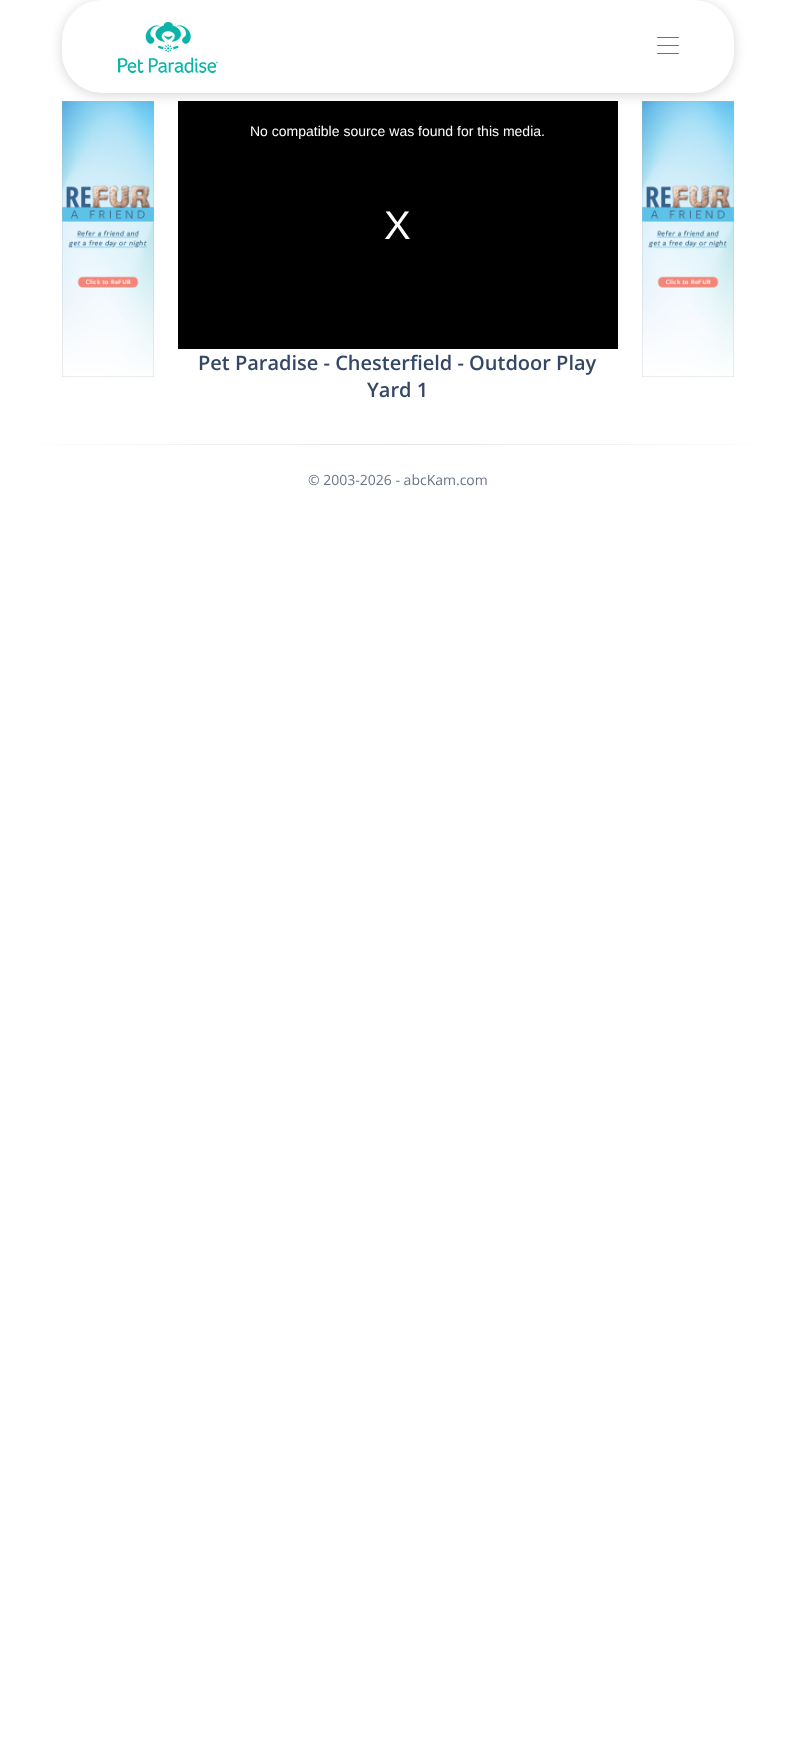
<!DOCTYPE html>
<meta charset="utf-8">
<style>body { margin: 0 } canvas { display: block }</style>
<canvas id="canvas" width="795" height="1755"></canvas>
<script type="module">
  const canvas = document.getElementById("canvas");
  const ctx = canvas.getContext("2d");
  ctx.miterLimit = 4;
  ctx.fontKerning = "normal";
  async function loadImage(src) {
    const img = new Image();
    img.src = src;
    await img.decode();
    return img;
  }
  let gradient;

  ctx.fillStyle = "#ffffff";
  ctx.fillRect(0, 0, 795, 1755);
  ctx.drawImage(await loadImage("img2.png"), 62, 101, 92, 276);
  ctx.fillStyle = "#000000";
  ctx.fillRect(178, 101, 440, 248);
  ctx.drawImage(await loadImage("img3.png"), 642, 101, 92, 276);
  ctx.fillStyle = "rgba(0, 0, 0, 0.16)";
  ctx.filter = "blur(6px)";
  ctx.beginPath();
  ctx.roundRect(62, 2, 672, 93, 40);
  ctx.fill();
  ctx.filter = "none";
  ctx.fillStyle = "#ffffff";
  ctx.beginPath();
  ctx.roundRect(62, 0, 672, 93, 40);
  ctx.fill();
  ctx.drawImage(await loadImage("img1.png"), 118, 22, 100, 51);
  ctx.fillStyle = "#6c757d";
  ctx.beginPath();
  ctx.roundRect(657, 37, 22, 1, 0.5);
  ctx.fill();
  ctx.beginPath();
  ctx.roundRect(657, 45, 22, 1, 0.5);
  ctx.fill();
  ctx.beginPath();
  ctx.roundRect(657, 53, 22, 1, 0.5);
  ctx.fill();
  ctx.font = "14px Liberation Sans";
  ctx.fillStyle = "#ffffff";
  ctx.fillText("No compatible source was found for this media.", 250, 136);
  ctx.font = "40px Liberation Sans";
  ctx.fillText("X", 384, 239);
  ctx.font = "600 20px Open Sans";
  ctx.fillStyle = "#344767";
  ctx.fillText("Pet Paradise - Chesterfield - Outdoor Play", 198, 370);
  ctx.fillText("Yard 1", 367, 397);
  gradient = ctx.createLinearGradient(0, 445, 795, 445);
  gradient.addColorStop(0, "#ffffff");
  gradient.addColorStop(0.5, "#e5e5e5");
  gradient.addColorStop(1, "#ffffff");
  ctx.fillStyle = gradient;
  ctx.fillRect(38, 444, 719, 1);
  ctx.font = "14px Open Sans";
  ctx.fillStyle = "#67748e";
  ctx.fillText("© 2003-2026 - abcKam.com", 308, 485);
</script>
